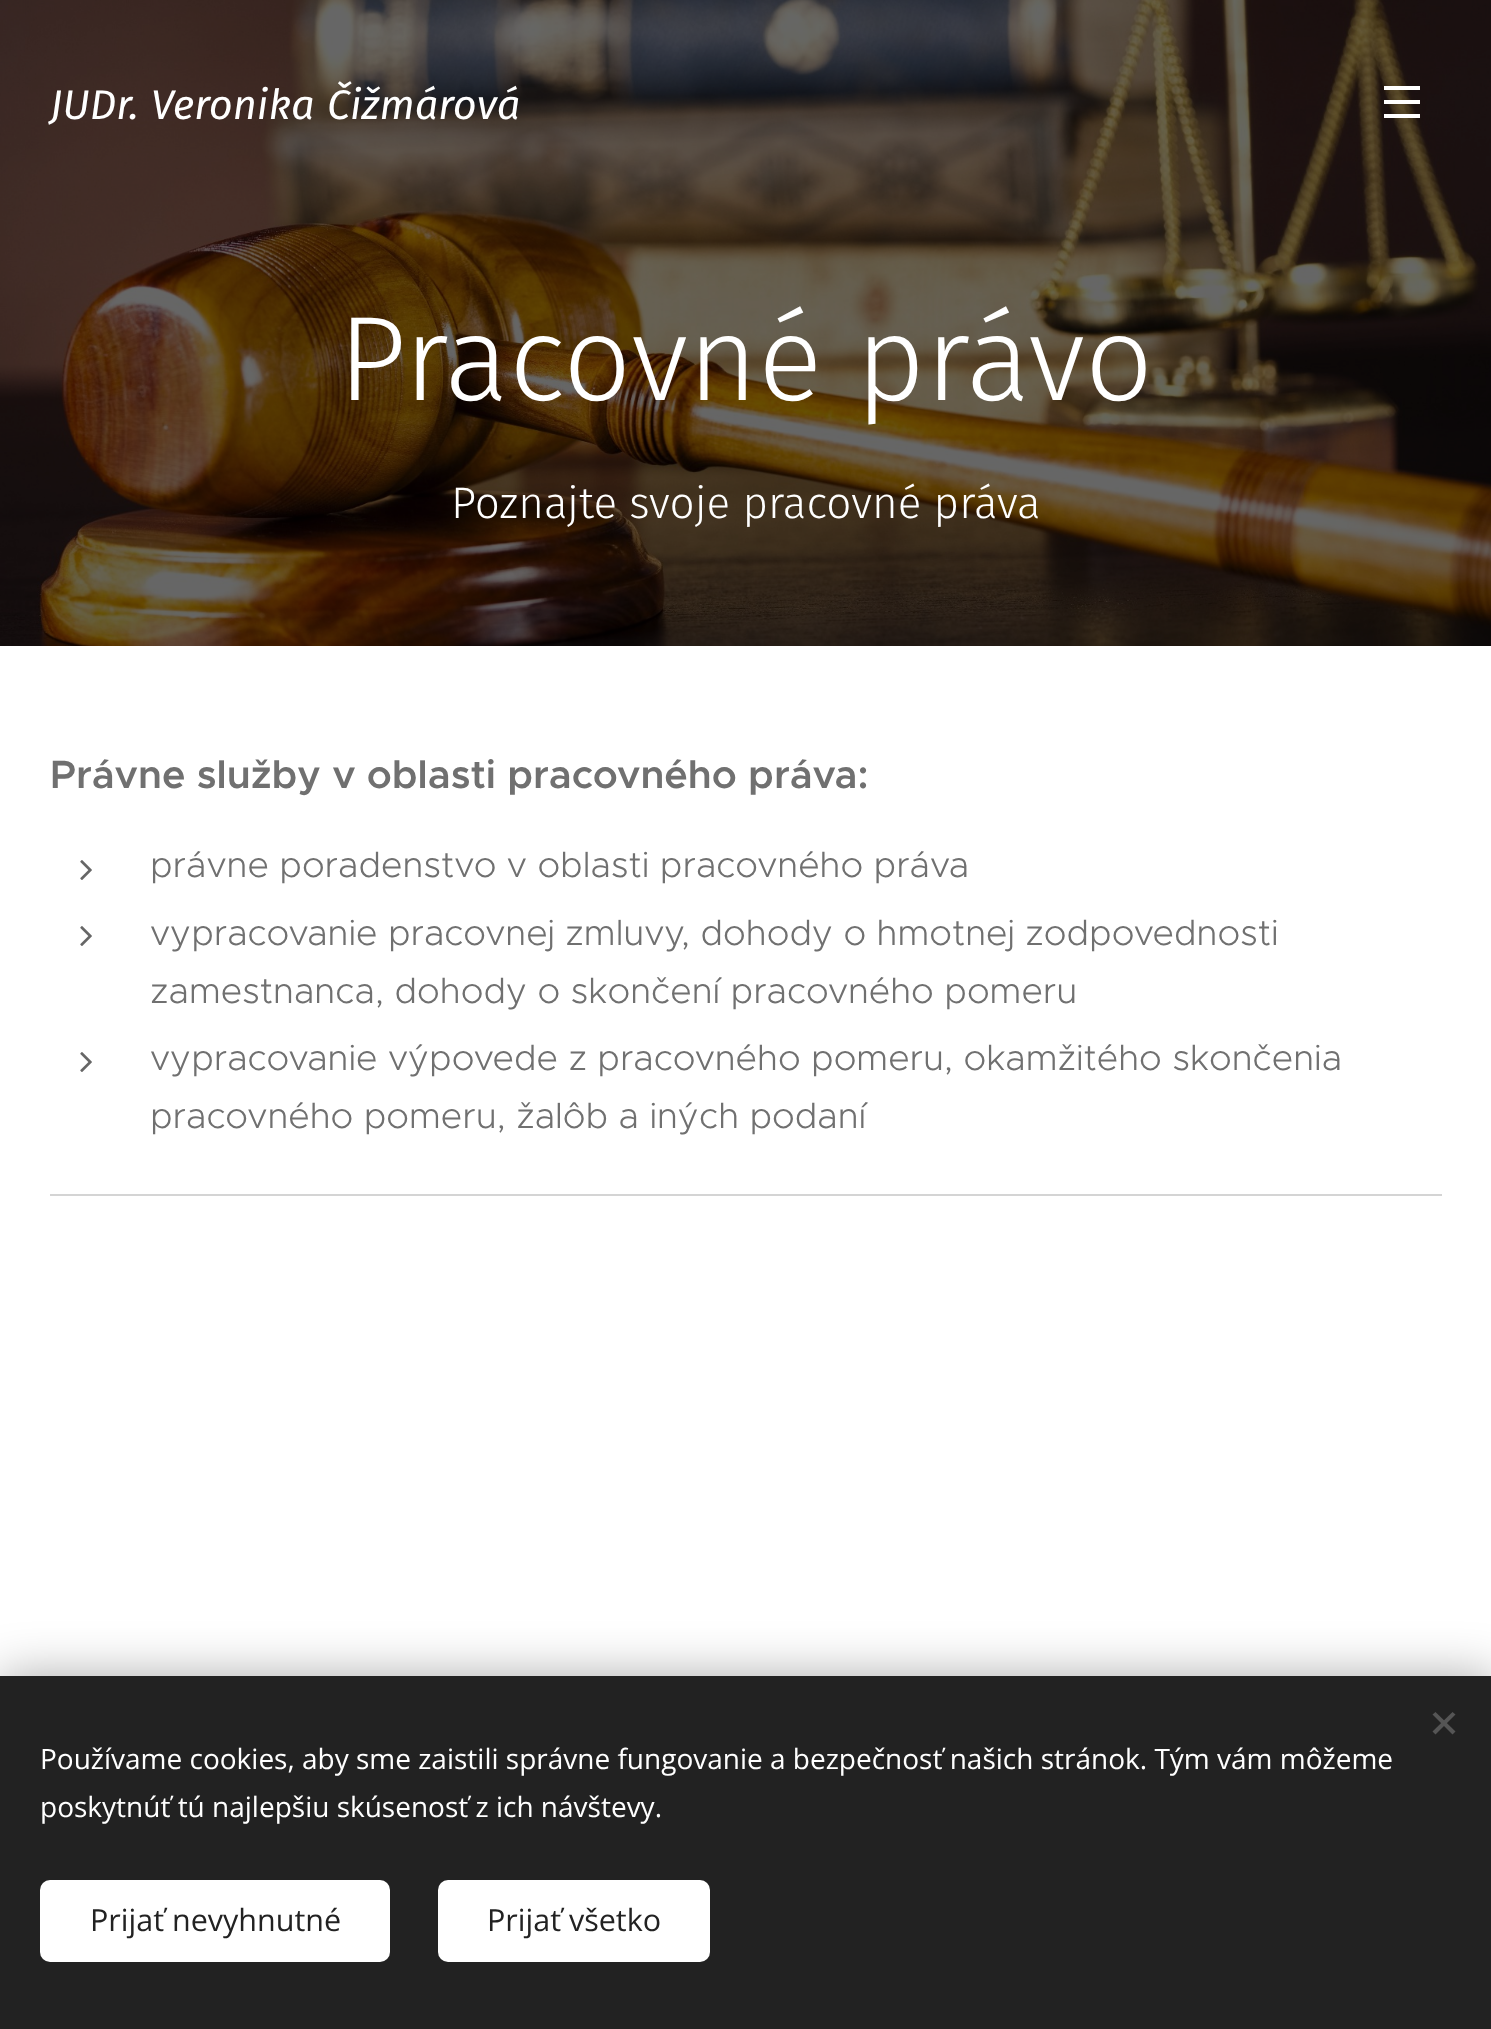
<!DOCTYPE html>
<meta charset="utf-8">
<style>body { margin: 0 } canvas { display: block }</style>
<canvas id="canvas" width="1491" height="2029"></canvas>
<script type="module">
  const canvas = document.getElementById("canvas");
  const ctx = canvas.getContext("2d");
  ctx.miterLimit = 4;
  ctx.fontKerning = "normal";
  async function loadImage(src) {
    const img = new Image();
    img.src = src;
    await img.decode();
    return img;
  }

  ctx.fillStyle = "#ffffff";
  ctx.fillRect(0, 0, 1491, 2029);
  ctx.drawImage(await loadImage("img1.png"), 0, 0, 1491, 646);
  ctx.font = "italic 41.5px Fira Sans";
  ctx.fillText("JUDr.", 50, 119);
  ctx.fillText("Veronika", 151, 119);
  ctx.fillText("Čižmárová", 327, 119);
  ctx.fillRect(1384, 100, 36, 4);
  ctx.fillRect(1384, 86, 36, 4);
  ctx.fillRect(1384, 114, 36, 4);
  ctx.font = "300 120px Fira Sans";
  ctx.fillText("Pracovné právo", 338, 400);
  ctx.font = "300 44px Fira Sans";
  ctx.fillText("Poznajte svoje pracovné práva", 451, 518);
  ctx.font = "600 39.6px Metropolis";
  ctx.fillStyle = "#707070";
  ctx.fillText("Právne služby v oblasti pracovného práva:", 50, 788);
  ctx.drawImage(await loadImage("img2.png"), 80, 860, 12, 20);
  ctx.font = "300 36px Metropolis";
  ctx.fillText("právne poradenstvo v oblasti pracovného práva", 150, 877);
  ctx.drawImage(await loadImage("img2.png"), 80, 926, 12, 20);
  ctx.fillText("vypracovanie pracovnej zmluvy, dohody o hmotnej zodpovednosti", 150, 945);
  ctx.fillText("zamestnanca, dohody o skončení pracovného pomeru", 150, 1003);
  ctx.drawImage(await loadImage("img2.png"), 80, 1052, 12, 20);
  ctx.fillText("vypracovanie výpovede z pracovného pomeru, okamžitého skončenia", 150, 1070);
  ctx.fillText("pracovného pomeru, žalôb a iných podaní", 150, 1128);
  ctx.fillStyle = "#d4d4d4";
  ctx.fillRect(50, 1194, 1392, 2);
  ctx.fillStyle = "rgba(0, 0, 0, 0.33)";
  ctx.filter = "blur(25px)";
  ctx.beginPath();
  ctx.rect(0, 1676, 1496, 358);
  ctx.fill();
  ctx.filter = "none";
  ctx.fillStyle = "#222222";
  ctx.fillRect(0, 1676, 1491, 353);
  ctx.fillStyle = "#555555";
  ctx.beginPath();
  ctx.moveTo(1432.5, 1731.5);
  ctx.lineTo(1452.5, 1712);
  ctx.lineTo(1455.5, 1714.5);
  ctx.lineTo(1435.5, 1734.5);
  ctx.closePath();
  ctx.fill();
  ctx.beginPath();
  ctx.moveTo(1435.5, 1712);
  ctx.lineTo(1455.5, 1731.5);
  ctx.lineTo(1452.5, 1734.5);
  ctx.lineTo(1432.5, 1714.5);
  ctx.closePath();
  ctx.fill();
  ctx.font = "28px Open Sans";
  ctx.fillStyle = "#ffffff";
  ctx.fillText("Používame cookies, aby sme zaistili správne fungovanie a bezpečnosť našich stránok. Tým vám môžeme", 40, 1769);
  ctx.fillText("poskytnúť tú najlepšiu skúsenosť z ich návštevy.", 40, 1817);
  ctx.beginPath();
  ctx.roundRect(40, 1880, 350, 82, 10);
  ctx.fill();
  ctx.font = "30.5px Open Sans";
  ctx.fillStyle = "#222222";
  ctx.fillText("Prijať nevyhnutné", 90, 1931);
  ctx.fillStyle = "#ffffff";
  ctx.beginPath();
  ctx.roundRect(438, 1880, 272, 82, 10);
  ctx.fill();
  ctx.fillStyle = "#222222";
  ctx.fillText("Prijať všetko", 487, 1931);
</script>
